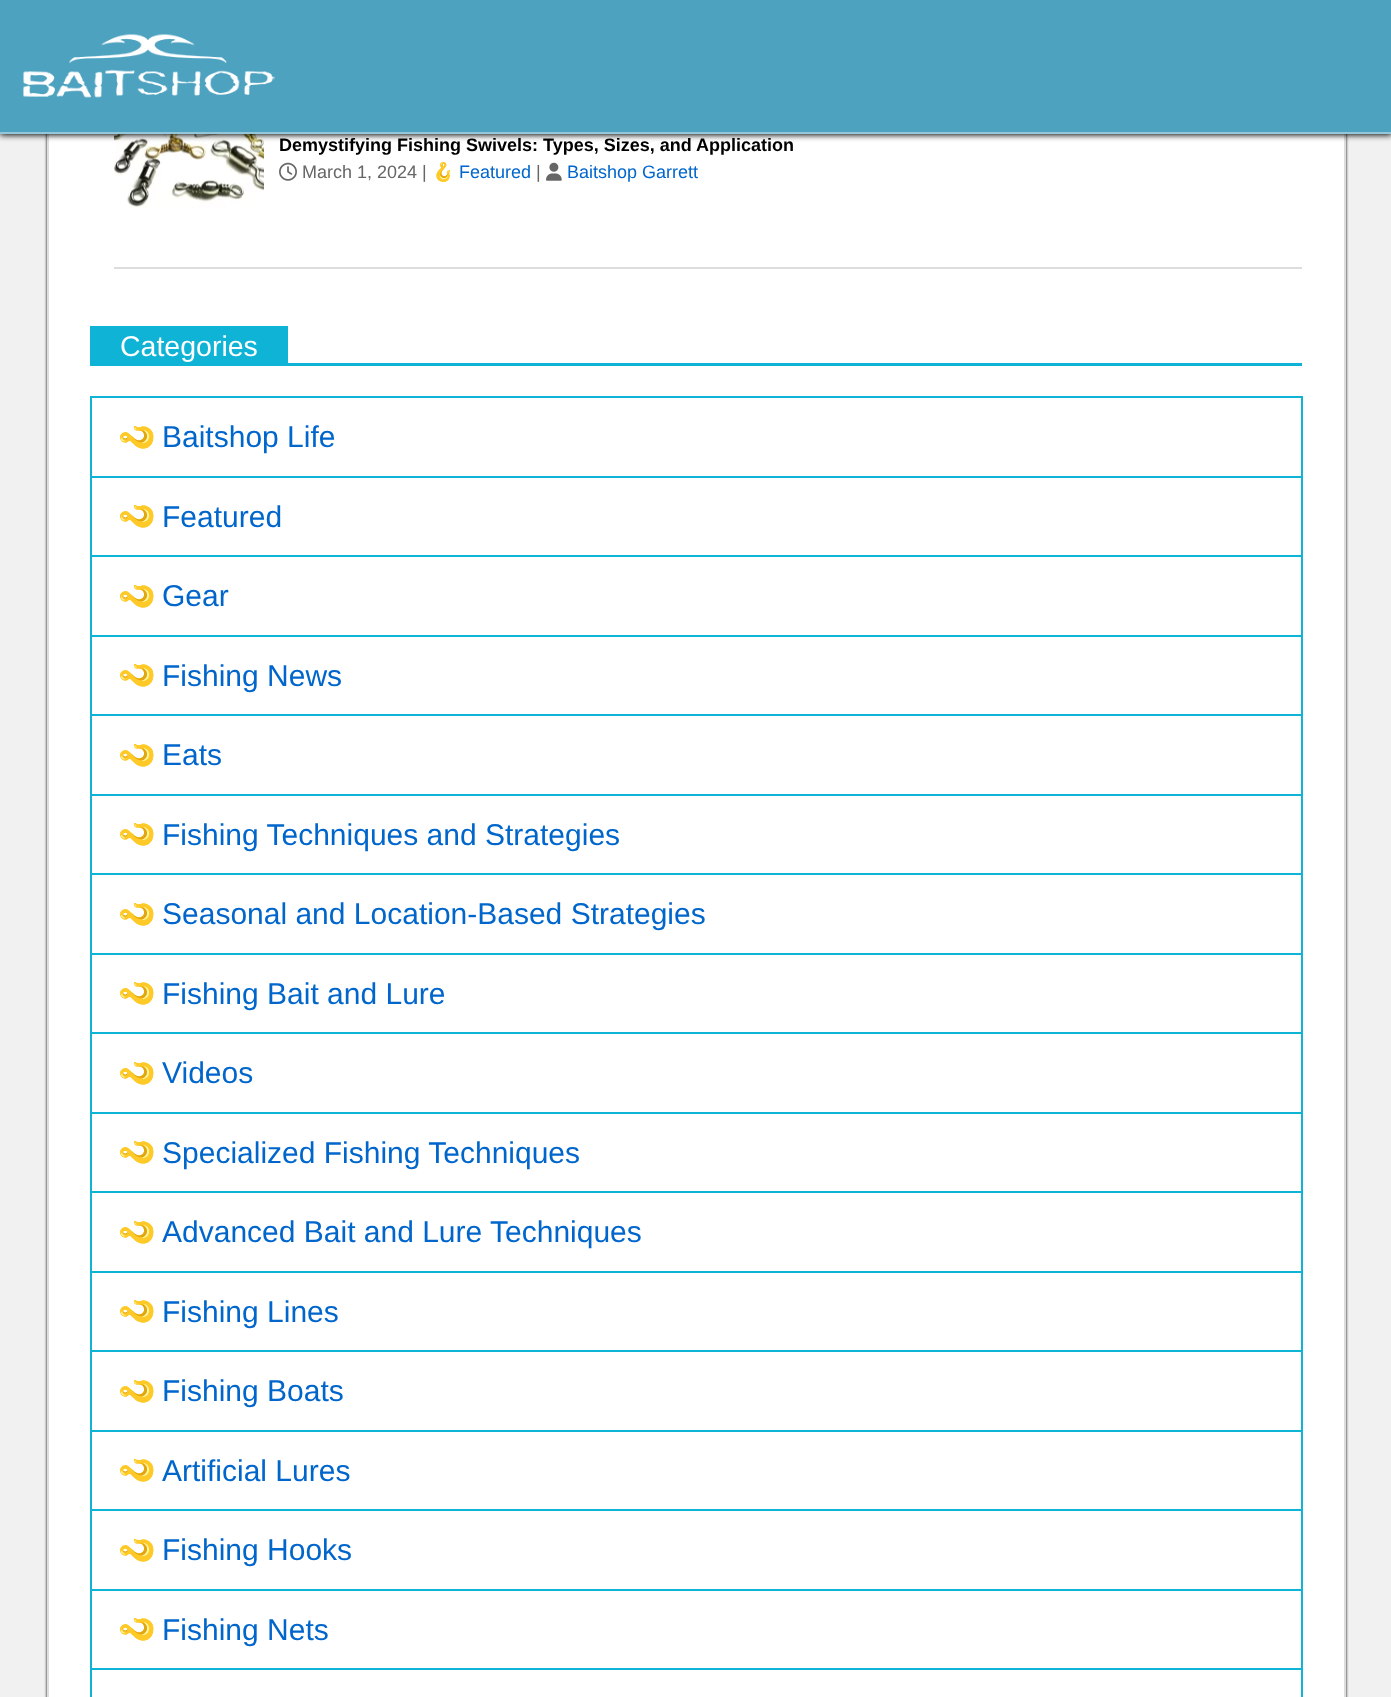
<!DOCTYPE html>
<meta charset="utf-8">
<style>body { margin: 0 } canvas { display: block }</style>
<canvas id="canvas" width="1391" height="1697"></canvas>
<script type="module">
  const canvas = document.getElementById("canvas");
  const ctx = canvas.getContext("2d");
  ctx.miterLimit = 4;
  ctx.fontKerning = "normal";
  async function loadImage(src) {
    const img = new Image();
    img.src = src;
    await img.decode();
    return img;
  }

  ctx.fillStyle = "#f1f1f1";
  ctx.fillRect(0, 0, 1391, 1697);
  ctx.fillStyle = "#000000";
  ctx.filter = "blur(1.5px)";
  ctx.beginPath();
  ctx.rect(47, -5, 1299, 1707);
  ctx.fill();
  ctx.filter = "none";
  ctx.fillStyle = "#ffffff";
  ctx.fillRect(49, 134, 1295, 1563);
  ctx.strokeStyle = "#dddddd";
  ctx.lineWidth = 2;
  ctx.strokeRect(48, -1, 1297, 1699);
  ctx.drawImage(await loadImage("img2.png"), 114, 134, 150, 74);
  ctx.fillStyle = "#000000";
  ctx.filter = "blur(3px)";
  ctx.beginPath();
  ctx.rect(0, 2, 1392, 133);
  ctx.fill();
  ctx.filter = "none";
  ctx.fillStyle = "#4da2c0";
  ctx.fillRect(0, 0, 1391, 132);
  ctx.fillStyle = "#94c7d9";
  ctx.fillRect(0, 132, 1391, 2);
  ctx.drawImage(await loadImage("img1.png"), 23, 34, 252, 64);
  ctx.fillStyle = "#dddddd";
  ctx.fillRect(114, 267, 1188, 2);
  ctx.font = "bold 18px Liberation Sans";
  ctx.fillStyle = "#000000";
  ctx.fillText("Demystifying Fishing Swivels: Types, Sizes, and Application", 279, 151);
  ctx.drawImage(await loadImage("img3.png"), 279, 162, 18, 19);
  ctx.font = "18px Liberation Sans";
  ctx.fillStyle = "#666666";
  ctx.fillText("March 1, 2024 |", 302, 178);
  ctx.font = "18px Noto Color Emoji";
  ctx.fillText("🪝", 432, 178);
  ctx.font = "18px Liberation Sans";
  ctx.fillStyle = "#0066cc";
  ctx.fillText("Featured", 459, 178);
  ctx.fillStyle = "#666666";
  ctx.fillText("|", 536, 178);
  ctx.drawImage(await loadImage("img4.png"), 546, 162, 16, 19);
  ctx.fillStyle = "#0066cc";
  ctx.fillText("Baitshop Garrett", 567, 178);
  ctx.fillStyle = "#0eb3d6";
  ctx.fillRect(288, 363, 1014, 3);
  ctx.fillRect(90, 326, 198, 40);
  ctx.font = "28.5px Liberation Sans";
  ctx.fillStyle = "#ffffff";
  ctx.fillText("Categories", 120, 356);
  ctx.fillStyle = "#0eb3d6";
  ctx.fillRect(90, 396, 1212, 2);
  ctx.fillRect(1301, 396, 2, 80);
  ctx.fillRect(90, 396, 2, 80);
  ctx.font = "30px Noto Color Emoji";
  ctx.fillStyle = "#0066cc";
  ctx.save();
  ctx.translate(147, 456);
  ctx.rotate(-90 * Math.PI / 180);
  ctx.fillText("🪝", 0, 0);
  ctx.restore();
  ctx.font = "30px Liberation Sans";
  ctx.fillText("Baitshop Life", 162, 447);
  ctx.fillStyle = "#0eb3d6";
  ctx.fillRect(90, 476, 1212, 2);
  ctx.fillRect(1301, 476, 2, 79);
  ctx.fillRect(90, 476, 2, 79);
  ctx.font = "30px Noto Color Emoji";
  ctx.fillStyle = "#0066cc";
  ctx.save();
  ctx.translate(147, 535);
  ctx.rotate(-90 * Math.PI / 180);
  ctx.fillText("🪝", 0, 0);
  ctx.restore();
  ctx.font = "30px Liberation Sans";
  ctx.fillText("Featured", 162, 527);
  ctx.fillStyle = "#0eb3d6";
  ctx.fillRect(90, 555, 1212, 2);
  ctx.fillRect(1301, 555, 2, 80);
  ctx.fillRect(90, 555, 2, 80);
  ctx.font = "30px Noto Color Emoji";
  ctx.fillStyle = "#0066cc";
  ctx.save();
  ctx.translate(147, 615);
  ctx.rotate(-90 * Math.PI / 180);
  ctx.fillText("🪝", 0, 0);
  ctx.restore();
  ctx.font = "30px Liberation Sans";
  ctx.fillText("Gear", 162, 606);
  ctx.fillStyle = "#0eb3d6";
  ctx.fillRect(90, 635, 1212, 2);
  ctx.fillRect(1301, 635, 2, 79);
  ctx.fillRect(90, 635, 2, 79);
  ctx.font = "30px Noto Color Emoji";
  ctx.fillStyle = "#0066cc";
  ctx.save();
  ctx.translate(147, 694);
  ctx.rotate(-90 * Math.PI / 180);
  ctx.fillText("🪝", 0, 0);
  ctx.restore();
  ctx.font = "30px Liberation Sans";
  ctx.fillText("Fishing News", 162, 686);
  ctx.fillStyle = "#0eb3d6";
  ctx.fillRect(90, 714, 1212, 2);
  ctx.fillRect(1301, 714, 2, 80);
  ctx.fillRect(90, 714, 2, 80);
  ctx.font = "30px Noto Color Emoji";
  ctx.fillStyle = "#0066cc";
  ctx.save();
  ctx.translate(147, 774);
  ctx.rotate(-90 * Math.PI / 180);
  ctx.fillText("🪝", 0, 0);
  ctx.restore();
  ctx.font = "30px Liberation Sans";
  ctx.fillText("Eats", 162, 765);
  ctx.fillStyle = "#0eb3d6";
  ctx.fillRect(90, 794, 1212, 2);
  ctx.fillRect(1301, 794, 2, 79);
  ctx.fillRect(90, 794, 2, 79);
  ctx.font = "30px Noto Color Emoji";
  ctx.fillStyle = "#0066cc";
  ctx.save();
  ctx.translate(147, 853);
  ctx.rotate(-90 * Math.PI / 180);
  ctx.fillText("🪝", 0, 0);
  ctx.restore();
  ctx.font = "30px Liberation Sans";
  ctx.fillText("Fishing Techniques and Strategies", 162, 845);
  ctx.fillStyle = "#0eb3d6";
  ctx.fillRect(90, 873, 1212, 2);
  ctx.fillRect(1301, 873, 2, 80);
  ctx.fillRect(90, 873, 2, 80);
  ctx.font = "30px Noto Color Emoji";
  ctx.fillStyle = "#0066cc";
  ctx.save();
  ctx.translate(147, 933);
  ctx.rotate(-90 * Math.PI / 180);
  ctx.fillText("🪝", 0, 0);
  ctx.restore();
  ctx.font = "30px Liberation Sans";
  ctx.fillText("Seasonal and Location-Based Strategies", 162, 924);
  ctx.fillStyle = "#0eb3d6";
  ctx.fillRect(90, 953, 1212, 2);
  ctx.fillRect(1301, 953, 2, 79);
  ctx.fillRect(90, 953, 2, 79);
  ctx.font = "30px Noto Color Emoji";
  ctx.fillStyle = "#0066cc";
  ctx.save();
  ctx.translate(147, 1012);
  ctx.rotate(-90 * Math.PI / 180);
  ctx.fillText("🪝", 0, 0);
  ctx.restore();
  ctx.font = "30px Liberation Sans";
  ctx.fillText("Fishing Bait and Lure", 162, 1004);
  ctx.fillStyle = "#0eb3d6";
  ctx.fillRect(90, 1032, 1212, 2);
  ctx.fillRect(1301, 1032, 2, 80);
  ctx.fillRect(90, 1032, 2, 80);
  ctx.font = "30px Noto Color Emoji";
  ctx.fillStyle = "#0066cc";
  ctx.save();
  ctx.translate(147, 1092);
  ctx.rotate(-90 * Math.PI / 180);
  ctx.fillText("🪝", 0, 0);
  ctx.restore();
  ctx.font = "30px Liberation Sans";
  ctx.fillText("Videos", 162, 1083);
  ctx.fillStyle = "#0eb3d6";
  ctx.fillRect(90, 1112, 1212, 2);
  ctx.fillRect(1301, 1112, 2, 79);
  ctx.fillRect(90, 1112, 2, 79);
  ctx.font = "30px Noto Color Emoji";
  ctx.fillStyle = "#0066cc";
  ctx.save();
  ctx.translate(147, 1171);
  ctx.rotate(-90 * Math.PI / 180);
  ctx.fillText("🪝", 0, 0);
  ctx.restore();
  ctx.font = "30px Liberation Sans";
  ctx.fillText("Specialized Fishing Techniques", 162, 1163);
  ctx.fillStyle = "#0eb3d6";
  ctx.fillRect(90, 1191, 1212, 2);
  ctx.fillRect(1301, 1191, 2, 80);
  ctx.fillRect(90, 1191, 2, 80);
  ctx.font = "30px Noto Color Emoji";
  ctx.fillStyle = "#0066cc";
  ctx.save();
  ctx.translate(147, 1251);
  ctx.rotate(-90 * Math.PI / 180);
  ctx.fillText("🪝", 0, 0);
  ctx.restore();
  ctx.font = "30px Liberation Sans";
  ctx.fillText("Advanced Bait and Lure Techniques", 162, 1242);
  ctx.fillStyle = "#0eb3d6";
  ctx.fillRect(90, 1271, 1212, 2);
  ctx.fillRect(1301, 1271, 2, 79);
  ctx.fillRect(90, 1271, 2, 79);
  ctx.font = "30px Noto Color Emoji";
  ctx.fillStyle = "#0066cc";
  ctx.save();
  ctx.translate(147, 1330);
  ctx.rotate(-90 * Math.PI / 180);
  ctx.fillText("🪝", 0, 0);
  ctx.restore();
  ctx.font = "30px Liberation Sans";
  ctx.fillText("Fishing Lines", 162, 1322);
  ctx.fillStyle = "#0eb3d6";
  ctx.fillRect(90, 1350, 1212, 2);
  ctx.fillRect(1301, 1350, 2, 80);
  ctx.fillRect(90, 1350, 2, 80);
  ctx.font = "30px Noto Color Emoji";
  ctx.fillStyle = "#0066cc";
  ctx.save();
  ctx.translate(147, 1410);
  ctx.rotate(-90 * Math.PI / 180);
  ctx.fillText("🪝", 0, 0);
  ctx.restore();
  ctx.font = "30px Liberation Sans";
  ctx.fillText("Fishing Boats", 162, 1401);
  ctx.fillStyle = "#0eb3d6";
  ctx.fillRect(90, 1430, 1212, 2);
  ctx.fillRect(1301, 1430, 2, 79);
  ctx.fillRect(90, 1430, 2, 79);
  ctx.font = "30px Noto Color Emoji";
  ctx.fillStyle = "#0066cc";
  ctx.save();
  ctx.translate(147, 1489);
  ctx.rotate(-90 * Math.PI / 180);
  ctx.fillText("🪝", 0, 0);
  ctx.restore();
  ctx.font = "30px Liberation Sans";
  ctx.fillText("Artificial Lures", 162, 1481);
  ctx.fillStyle = "#0eb3d6";
  ctx.fillRect(90, 1509, 1212, 2);
  ctx.fillRect(1301, 1509, 2, 80);
  ctx.fillRect(90, 1509, 2, 80);
  ctx.font = "30px Noto Color Emoji";
  ctx.fillStyle = "#0066cc";
  ctx.save();
  ctx.translate(147, 1569);
  ctx.rotate(-90 * Math.PI / 180);
  ctx.fillText("🪝", 0, 0);
  ctx.restore();
  ctx.font = "30px Liberation Sans";
  ctx.fillText("Fishing Hooks", 162, 1560);
  ctx.fillStyle = "#0eb3d6";
  ctx.fillRect(90, 1589, 1212, 2);
  ctx.fillRect(1301, 1589, 2, 79);
  ctx.fillRect(90, 1589, 2, 79);
  ctx.font = "30px Noto Color Emoji";
  ctx.fillStyle = "#0066cc";
  ctx.save();
  ctx.translate(147, 1648);
  ctx.rotate(-90 * Math.PI / 180);
  ctx.fillText("🪝", 0, 0);
  ctx.restore();
  ctx.font = "30px Liberation Sans";
  ctx.fillText("Fishing Nets", 162, 1640);
  ctx.fillStyle = "#0eb3d6";
  ctx.fillRect(90, 1668, 1212, 2);
  ctx.fillRect(1301, 1668, 2, 29);
  ctx.fillRect(90, 1668, 2, 29);
</script>
